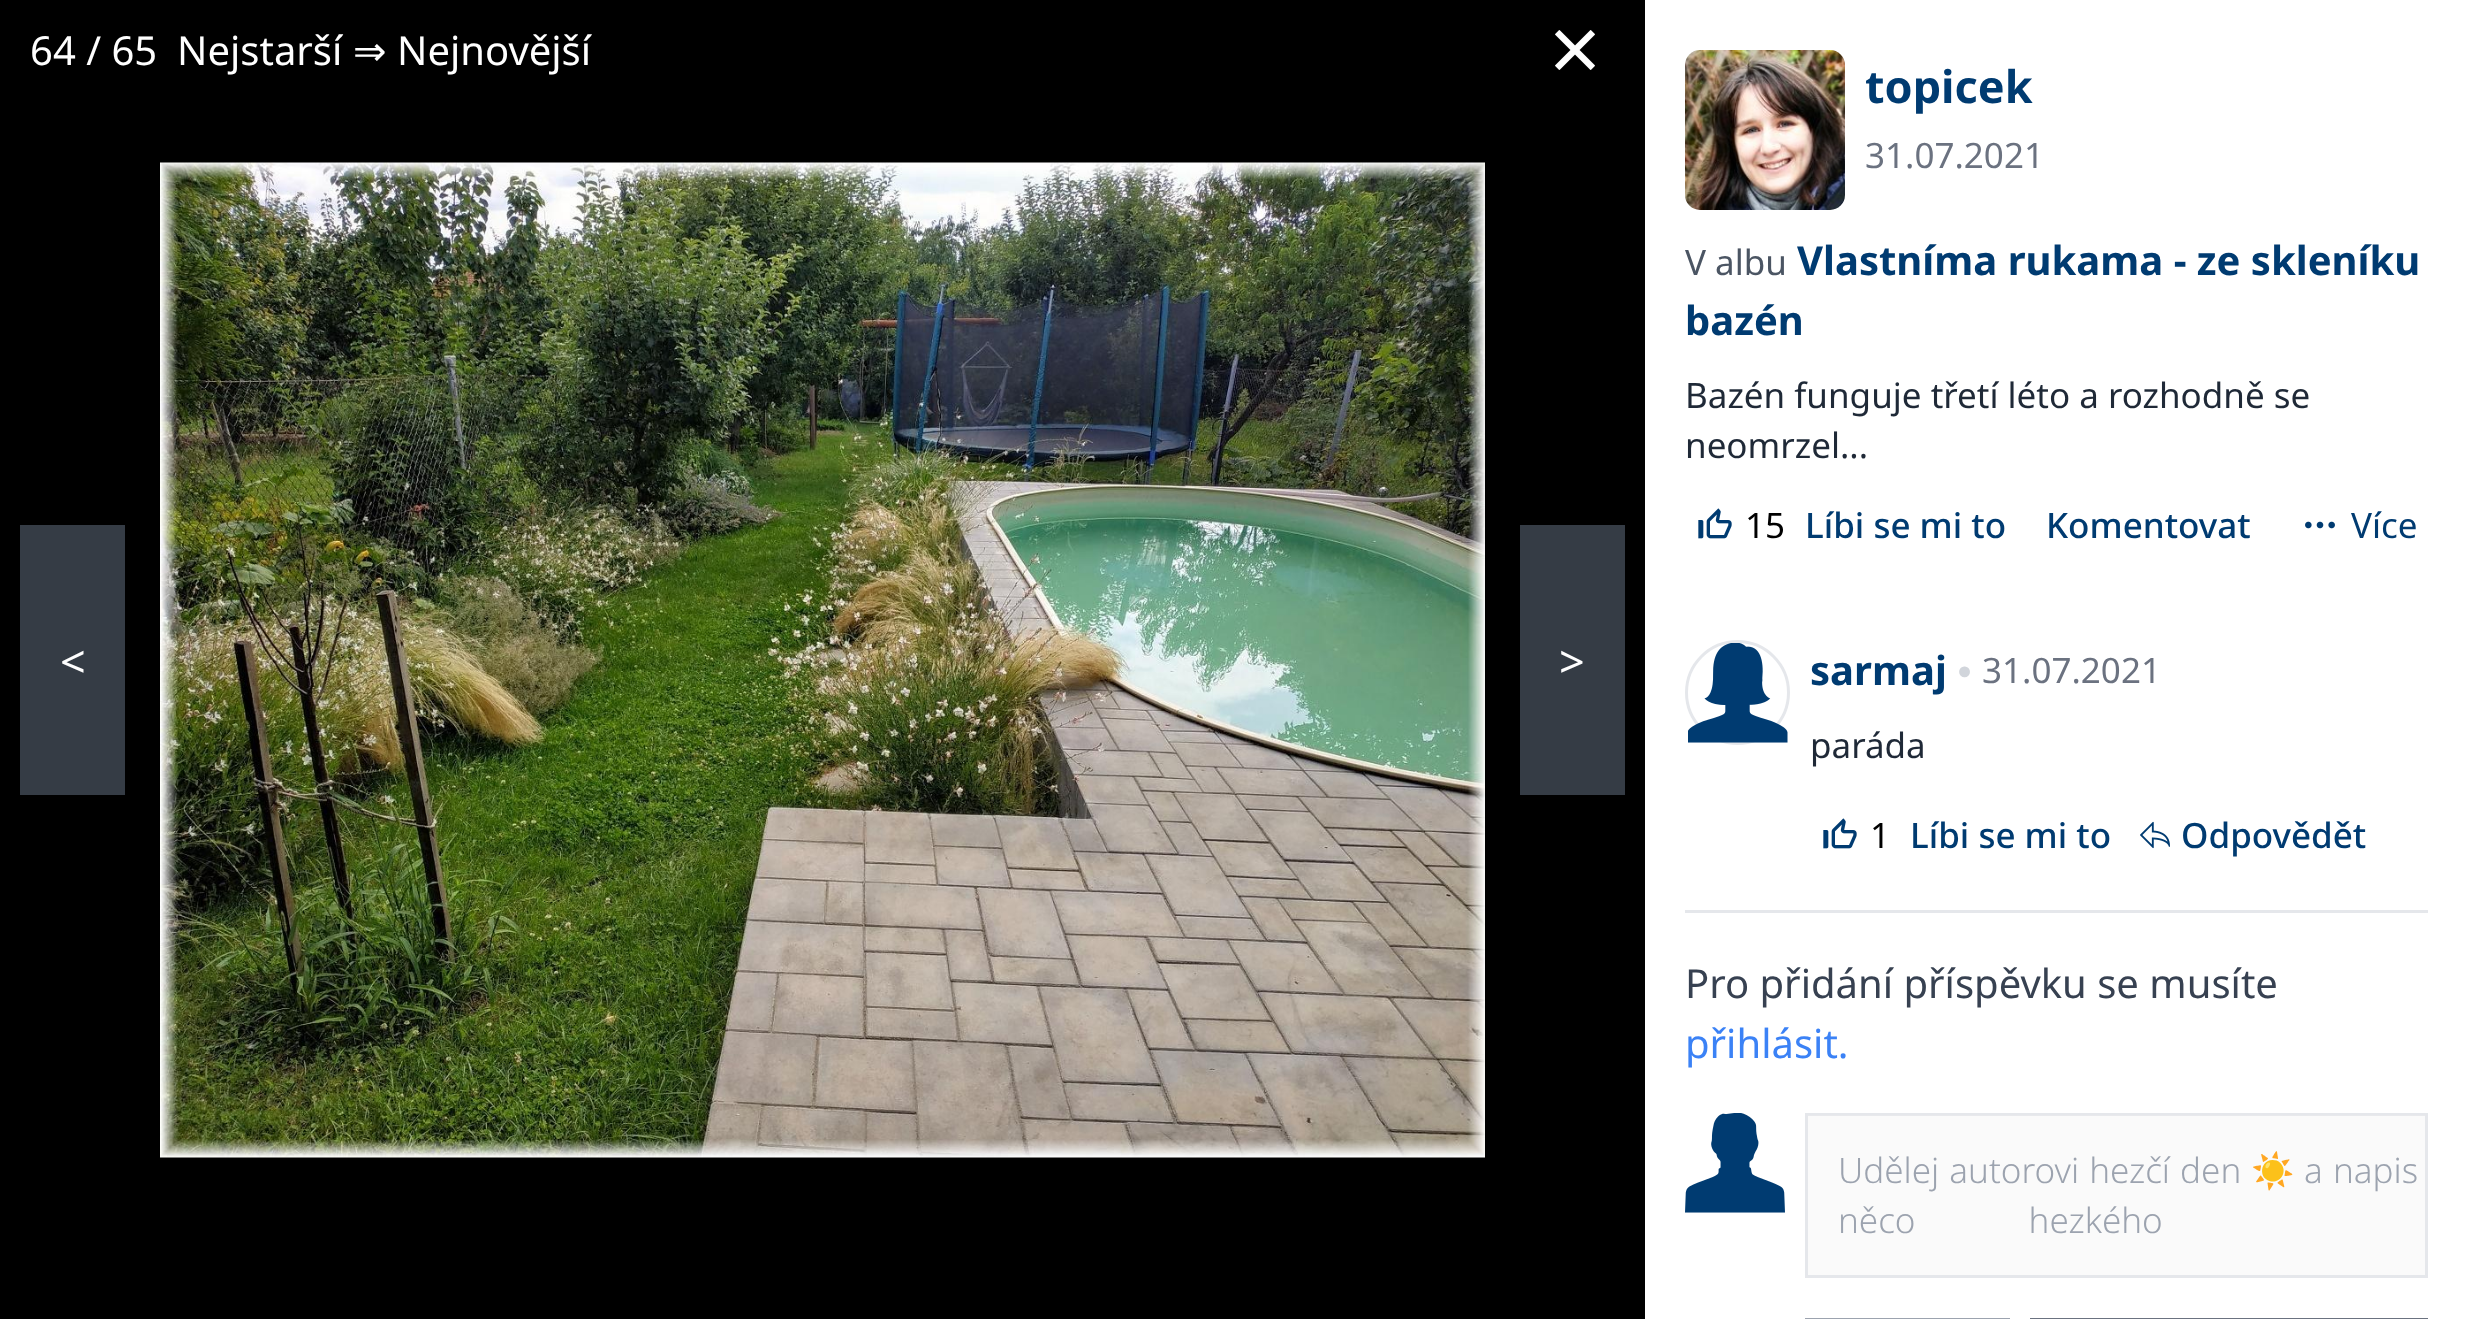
<!DOCTYPE html>
<meta charset="utf-8">
<style>body { margin: 0 } canvas { display: block }</style>
<canvas id="canvas" width="2467" height="1319"></canvas>
<script type="module">
  const canvas = document.getElementById("canvas");
  const ctx = canvas.getContext("2d");
  ctx.miterLimit = 4;
  ctx.fontKerning = "normal";
  async function loadImage(src) {
    const img = new Image();
    img.src = src;
    await img.decode();
    return img;
  }

  ctx.fillStyle = "#ffffff";
  ctx.fillRect(0, 0, 2467, 1319);
  ctx.fillStyle = "#000000";
  ctx.fillRect(0, 0, 1645, 1319);
  ctx.font = "40px Noto Sans";
  ctx.fillStyle = "#ffffff";
  ctx.fillText("64 / 65", 30, 65);
  ctx.fillText("Nejstarší", 177, 65);
  ctx.font = "40px DejaVu Sans";
  ctx.fillText("⇒", 353, 65);
  ctx.font = "40px Noto Sans";
  ctx.fillText("Nejnovější", 397, 65);
  ctx.drawImage(await loadImage("img1.png"), 1555, 30, 40, 40);
  ctx.fillStyle = "#353c45";
  ctx.fillRect(20, 525, 105, 270);
  ctx.font = "45px Noto Sans";
  ctx.fillStyle = "#ffffff";
  ctx.fillText("<", 60, 678);
  ctx.drawImage(await loadImage("img2.png"), 160, 162, 1325, 996);
  ctx.fillStyle = "#353c45";
  ctx.fillRect(1520, 525, 105, 270);
  ctx.fillStyle = "#ffffff";
  ctx.fillText(">", 1559, 678);
  ctx.drawImage(await loadImage("img3.png"), 1685, 50, 160, 160);
  ctx.font = "bold 45px Noto Sans";
  ctx.fillStyle = "#003b71";
  ctx.fillText("topicek", 1865, 103);
  ctx.font = "35px Noto Sans";
  ctx.fillStyle = "#6b7280";
  ctx.fillText("31.07.2021", 1865, 168);
  ctx.fillStyle = "#4b5563";
  ctx.fillText("V albu", 1685, 275);
  ctx.font = "bold 40px Noto Sans";
  ctx.fillStyle = "#003b71";
  ctx.fillText("Vlastníma rukama - ze skleníku", 1797, 275);
  ctx.fillText("bazén", 1685, 335);
  ctx.font = "35px Noto Sans";
  ctx.fillStyle = "#1f2937";
  ctx.fillText("Bazén funguje třetí léto a rozhodně se", 1685, 408);
  ctx.fillText("neomrzel...", 1685, 458);
  ctx.drawImage(await loadImage("img4.png"), 1698, 508, 34, 31);
  ctx.fillStyle = "#000000";
  ctx.fillText("15", 1745, 538);
  ctx.font = "500 35px Noto Sans";
  ctx.fillStyle = "#003b71";
  ctx.fillText("Líbi se mi to", 1805, 538);
  ctx.fillText("Komentovat", 2046, 538);
  ctx.drawImage(await loadImage("img5.png"), 2305, 521, 30, 8);
  ctx.font = "35px Noto Sans";
  ctx.fillText("Více", 2351, 538);
  ctx.beginPath();
  ctx.arc(1737.5, 692.5, 51, 0, Math.PI * 2);
  ctx.strokeStyle = "#e5e7eb";
  ctx.lineWidth = 3;
  ctx.stroke();
  ctx.drawImage(await loadImage("img6.png"), 1688, 643, 100, 100);
  ctx.font = "bold 40px Noto Sans";
  ctx.fillText("sarmaj", 1810, 685);
  ctx.font = "25px Liberation Sans";
  ctx.fillStyle = "#d1d5db";
  ctx.fillText("●", 1957, 679);
  ctx.font = "35px Noto Sans";
  ctx.fillStyle = "#6b7280";
  ctx.fillText("31.07.2021", 1982, 683);
  ctx.fillStyle = "#1f2937";
  ctx.fillText("paráda", 1810, 758);
  ctx.drawImage(await loadImage("img4.png"), 1823, 818, 34, 31);
  ctx.fillStyle = "#000000";
  ctx.fillText("1", 1870, 848);
  ctx.font = "500 35px Noto Sans";
  ctx.fillStyle = "#003b71";
  ctx.fillText("Líbi se mi to", 1910, 848);
  ctx.drawImage(await loadImage("img7.png"), 2140, 821, 30, 28);
  ctx.fillText("Odpovědět", 2181, 848);
  ctx.fillStyle = "#e5e7eb";
  ctx.fillRect(1685, 910, 743, 3);
  ctx.font = "40px Noto Sans";
  ctx.fillStyle = "#374151";
  ctx.fillText("Pro přidání příspěvku se musíte", 1685, 998);
  ctx.fillStyle = "#3b82f6";
  ctx.fillText("přihlásit.", 1685, 1058);
  ctx.drawImage(await loadImage("img8.png"), 1685, 1113, 100, 100);
  ctx.strokeRect(1806.5, 1114.5, 620, 162);
  ctx.fillStyle = "rgba(239, 239, 239, 0.3)";
  ctx.fillRect(1808, 1115, 617, 160);
  ctx.wordSpacing = "1px";
  ctx.font = "300 35px Noto Sans";
  ctx.fillStyle = "#9ca3af";
  ctx.fillText("Udělej autorovi hezčí den", 1838, 1183);
  ctx.wordSpacing = "0px";
  ctx.font = "35px Noto Color Emoji";
  ctx.fillText("☀️", 2251, 1183);
  ctx.font = "300 35px Noto Sans";
  ctx.fillText("a", 2304, 1183);
  ctx.fillText("napis", 2333, 1183);
  ctx.wordSpacing = "104px";
  ctx.fillText("něco hezkého", 1838, 1233);
  ctx.strokeStyle = "#9ca3af";
  ctx.strokeRect(1806.5, 1319.5, 202, 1);
  ctx.fillStyle = "#6b7280";
  ctx.fillRect(2030, 1318, 398, 1);
</script>
